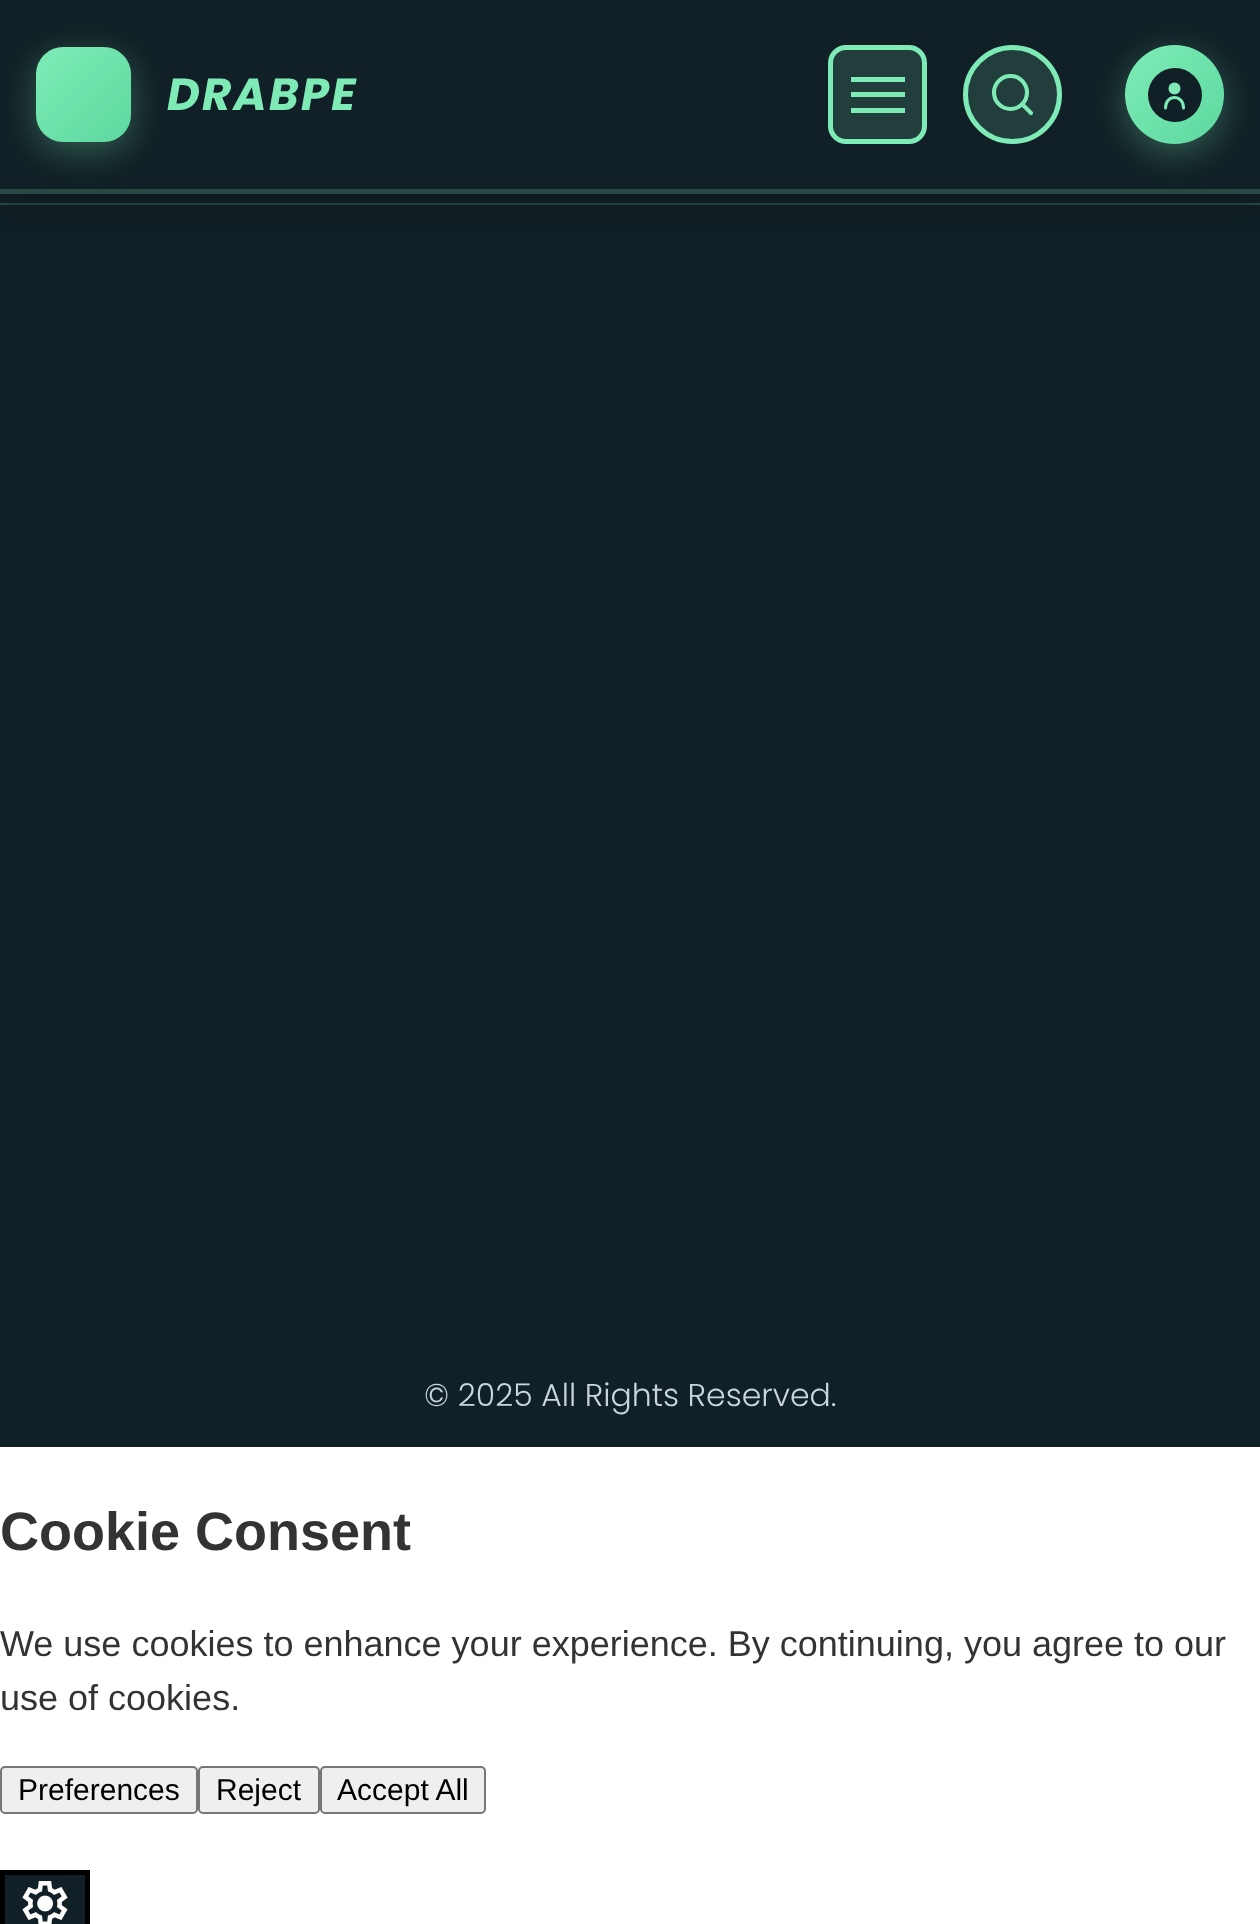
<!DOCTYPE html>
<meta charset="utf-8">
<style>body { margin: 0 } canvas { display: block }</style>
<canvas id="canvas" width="1260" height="1924"></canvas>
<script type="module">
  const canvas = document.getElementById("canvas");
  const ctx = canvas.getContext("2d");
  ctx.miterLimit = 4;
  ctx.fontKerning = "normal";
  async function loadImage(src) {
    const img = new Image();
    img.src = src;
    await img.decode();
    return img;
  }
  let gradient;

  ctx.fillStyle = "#ffffff";
  ctx.fillRect(0, 0, 1260, 1924);
  ctx.fillStyle = "#112026";
  ctx.fillRect(0, 194, 1260, 1253);
  ctx.fillStyle = "#274943";
  ctx.fillRect(0, 203, 1260, 2);
  ctx.fillStyle = "rgba(0, 0, 0, 0.3)";
  ctx.filter = "blur(17px)";
  ctx.beginPath();
  ctx.rect(0, 5, 1260, 193);
  ctx.fill();
  ctx.filter = "none";
  ctx.fillStyle = "#112026";
  ctx.fillRect(0, 0, 1260, 189);
  ctx.fillStyle = "#274943";
  ctx.fillRect(0, 189, 1260, 5);
  ctx.fillStyle = "rgba(126, 235, 183, 0.3)";
  ctx.filter = "blur(17px)";
  ctx.beginPath();
  ctx.roundRect(36, 56, 95, 95, 27);
  ctx.fill();
  ctx.filter = "none";
  gradient = ctx.createLinearGradient(36, 47, 131, 142);
  gradient.addColorStop(0, "#7eebb7");
  gradient.addColorStop(1, "#5dd9a0");
  ctx.fillStyle = gradient;
  ctx.beginPath();
  ctx.roundRect(36, 47, 95, 95, 27);
  ctx.fill();
  ctx.letterSpacing = "2.25px";
  ctx.font = "italic bold 45px Poppins";
  ctx.fillStyle = "#7eebb7";
  ctx.fillText("DRABPE", 167, 110);
  ctx.fillStyle = "#213e3c";
  ctx.beginPath();
  ctx.roundRect(830.5, 47.5, 94, 94, 15.5);
  ctx.fill();
  ctx.strokeStyle = "#7eebb7";
  ctx.lineWidth = 5;
  ctx.stroke();
  ctx.fillStyle = "#7eebb7";
  ctx.fillRect(851, 77, 54, 5);
  ctx.fillRect(851, 92, 54, 5);
  ctx.fillRect(851, 108, 54, 5);
  ctx.fillStyle = "#213e3c";
  ctx.beginPath();
  ctx.arc(1012.5, 94.5, 47, 0, Math.PI * 2);
  ctx.fill();
  ctx.stroke();
  ctx.beginPath();
  ctx.arc(1010.5, 92.5, 16.5, 0, Math.PI * 2);
  ctx.lineWidth = 4.1;
  ctx.stroke();
  ctx.beginPath();
  ctx.moveTo(1031, 113);
  ctx.lineTo(1022, 104);
  ctx.lineCap = "round";
  ctx.lineJoin = "round";
  ctx.stroke();
  ctx.fillStyle = "rgba(126, 235, 183, 0.3)";
  ctx.filter = "blur(17px)";
  ctx.beginPath();
  ctx.roundRect(1125, 54, 99, 99, 49.5);
  ctx.fill();
  ctx.filter = "none";
  gradient = ctx.createLinearGradient(1125, 45, 1224, 144);
  gradient.addColorStop(0, "#7eebb7");
  gradient.addColorStop(1, "#5dd9a0");
  ctx.fillStyle = gradient;
  ctx.beginPath();
  ctx.arc(1174.5, 94.5, 49.5, 0, Math.PI * 2);
  ctx.fill();
  ctx.fillStyle = "#112026";
  ctx.beginPath();
  ctx.arc(1175, 95, 27, 0, Math.PI * 2);
  ctx.fill();
  ctx.fillStyle = "#7eebb7";
  ctx.beginPath();
  ctx.arc(1174.5, 88.5, 6, 0, Math.PI * 2);
  ctx.fill();
  ctx.beginPath();
  ctx.moveTo(1165.5, 108);
  ctx.bezierCurveTo(1165.5, 94, 1183.5, 94, 1183.5, 108);
  ctx.lineWidth = 3;
  ctx.lineJoin = "miter";
  ctx.stroke();
  ctx.letterSpacing = "0px";
  ctx.font = "300 31.5px Poppins";
  ctx.fillStyle = "#c8d5dc";
  ctx.fillText("© 2025 All Rights Reserved.", 424, 1406);
  ctx.font = "bold 54px Liberation Sans";
  ctx.fillStyle = "#333333";
  ctx.fillText("Cookie Consent", 0, 1550);
  ctx.font = "36px Liberation Sans";
  ctx.fillText("We use cookies to enhance your experience. By continuing, you agree to our", 0, 1656);
  ctx.fillText("use of cookies.", 0, 1710);
  ctx.fillStyle = "#efefef";
  ctx.beginPath();
  ctx.roundRect(1, 1767, 196, 46, 4);
  ctx.fill();
  ctx.strokeStyle = "#767676";
  ctx.lineWidth = 2;
  ctx.stroke();
  ctx.font = "30px Liberation Sans";
  ctx.fillStyle = "#000000";
  ctx.fillText("Preferences", 18, 1800);
  ctx.fillStyle = "#efefef";
  ctx.beginPath();
  ctx.roundRect(199, 1767, 120, 46, 4);
  ctx.fill();
  ctx.stroke();
  ctx.fillStyle = "#000000";
  ctx.fillText("Reject", 216, 1800);
  ctx.fillStyle = "#efefef";
  ctx.beginPath();
  ctx.roundRect(321, 1767, 164, 46, 4);
  ctx.fill();
  ctx.stroke();
  ctx.fillStyle = "#000000";
  ctx.fillText("Accept All", 337, 1800);
  ctx.fillStyle = "#112026";
  ctx.beginPath();
  ctx.rect(2.5, 1872.5, 85, 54);
  ctx.fill();
  ctx.strokeStyle = "#000000";
  ctx.lineWidth = 5;
  ctx.stroke();
  ctx.drawImage(await loadImage("img1.png"), 22, 1881, 46, 43);
</script>
